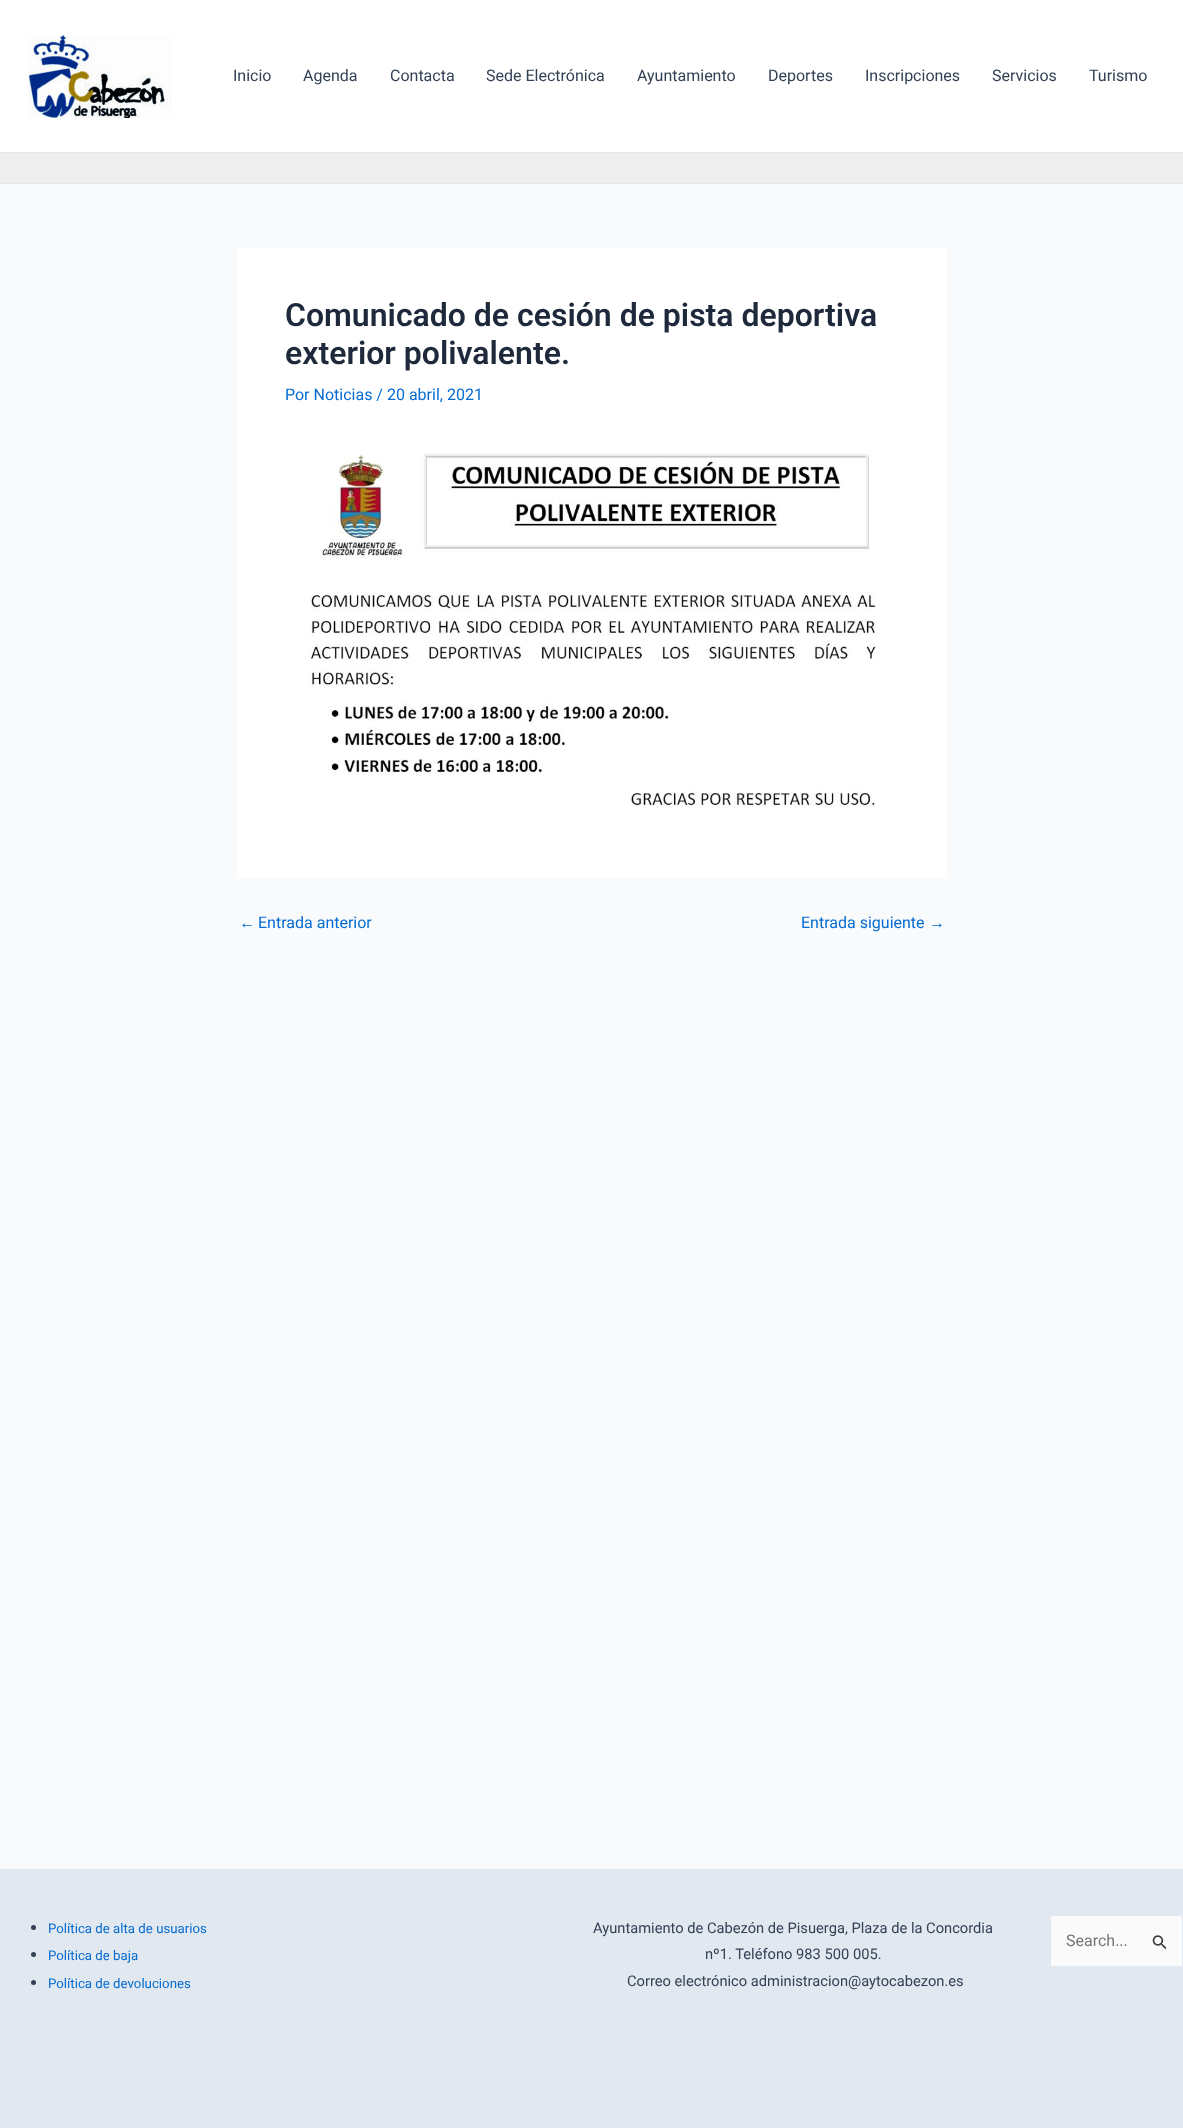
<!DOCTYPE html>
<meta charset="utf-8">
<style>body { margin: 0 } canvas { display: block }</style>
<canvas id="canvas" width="1183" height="2128"></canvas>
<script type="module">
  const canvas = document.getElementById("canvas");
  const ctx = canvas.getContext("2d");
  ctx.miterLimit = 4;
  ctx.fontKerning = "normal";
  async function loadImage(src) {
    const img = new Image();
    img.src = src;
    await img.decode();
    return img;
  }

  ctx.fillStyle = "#f9fafb";
  ctx.fillRect(0, 0, 1183, 2128);
  ctx.fillStyle = "#ffffff";
  ctx.fillRect(0, 0, 1183, 152);
  ctx.fillStyle = "#e2e8f0";
  ctx.fillRect(0, 152, 1183, 1);
  ctx.drawImage(await loadImage("img1.png"), 28, 35, 144, 83);
  ctx.font = "16px Roboto";
  ctx.fillStyle = "#334155";
  ctx.fillText("Inicio", 233, 81);
  ctx.fillText("Agenda", 303, 81);
  ctx.fillText("Contacta", 390, 81);
  ctx.fillText("Sede Electrónica", 486, 81);
  ctx.fillText("Ayuntamiento", 637, 81);
  ctx.fillText("Deportes", 768, 81);
  ctx.fillText("Inscripciones", 865, 81);
  ctx.fillText("Servicios", 992, 81);
  ctx.fillText("Turismo", 1089, 81);
  ctx.fillStyle = "#eeeeee";
  ctx.fillRect(0, 153, 1183, 30);
  ctx.fillStyle = "#e2e8f0";
  ctx.fillRect(0, 183, 1183, 1);
  ctx.fillStyle = "#ffffff";
  ctx.fillRect(237, 248, 710, 630);
  ctx.font = "600 32px Roboto";
  ctx.fillStyle = "#1e293b";
  ctx.fillText("Comunicado de cesión de pista deportiva", 285, 326);
  ctx.fillText("exterior polivalente.", 285, 364);
  ctx.font = "16px Roboto";
  ctx.fillStyle = "#046bd2";
  ctx.fillText("Por Noticias / 20 abril, 2021", 285, 400);
  ctx.drawImage(await loadImage("img2.png"), 309, 453, 567, 354);
  ctx.font = "16px Liberation Sans";
  ctx.fillText("←", 239, 928);
  ctx.font = "16px Roboto";
  ctx.fillText("Entrada anterior", 258, 928);
  ctx.fillText("Entrada siguiente", 801, 928);
  ctx.font = "16px Liberation Sans";
  ctx.fillText("→", 929, 928);
  ctx.fillStyle = "#e2e8f0";
  ctx.fillRect(0, 1869, 1183, 259);
  ctx.fillStyle = "#334155";
  ctx.beginPath();
  ctx.arc(33.5, 1927.5, 2.5, 0, Math.PI * 2);
  ctx.fill();
  ctx.font = "13.25px Roboto";
  ctx.fillStyle = "#046bd2";
  ctx.fillText("Política de alta de usuarios", 48, 1933);
  ctx.fillStyle = "#334155";
  ctx.beginPath();
  ctx.arc(33.5, 1954.5, 2.5, 0, Math.PI * 2);
  ctx.fill();
  ctx.fillStyle = "#046bd2";
  ctx.fillText("Política de baja", 48, 1960);
  ctx.fillStyle = "#334155";
  ctx.beginPath();
  ctx.arc(33.5, 1982.5, 2.5, 0, Math.PI * 2);
  ctx.fill();
  ctx.fillStyle = "#046bd2";
  ctx.fillText("Política de devoluciones", 48, 1988);
  ctx.font = "14.7px Roboto";
  ctx.fillStyle = "#334155";
  ctx.fillText("Ayuntamiento de Cabezón de Pisuerga, Plaza de la Concordia", 593, 1933);
  ctx.fillText("nº1. Teléfono 983 500 005.", 705, 1959);
  ctx.fillText("Correo electrónico administracion@aytocabezon.es", 627, 1986);
  ctx.fillStyle = "#fafafa";
  ctx.beginPath();
  ctx.roundRect(1050.5, 1915.5, 132, 51, 1.5);
  ctx.fill();
  ctx.strokeStyle = "#e2e8f0";
  ctx.stroke();
  ctx.font = "16px Roboto";
  ctx.fillStyle = "#757575";
  ctx.fillText("Search...", 1066, 1946);
  ctx.drawImage(await loadImage("img3.png"), 1152, 1935, 14, 15);
</script>
